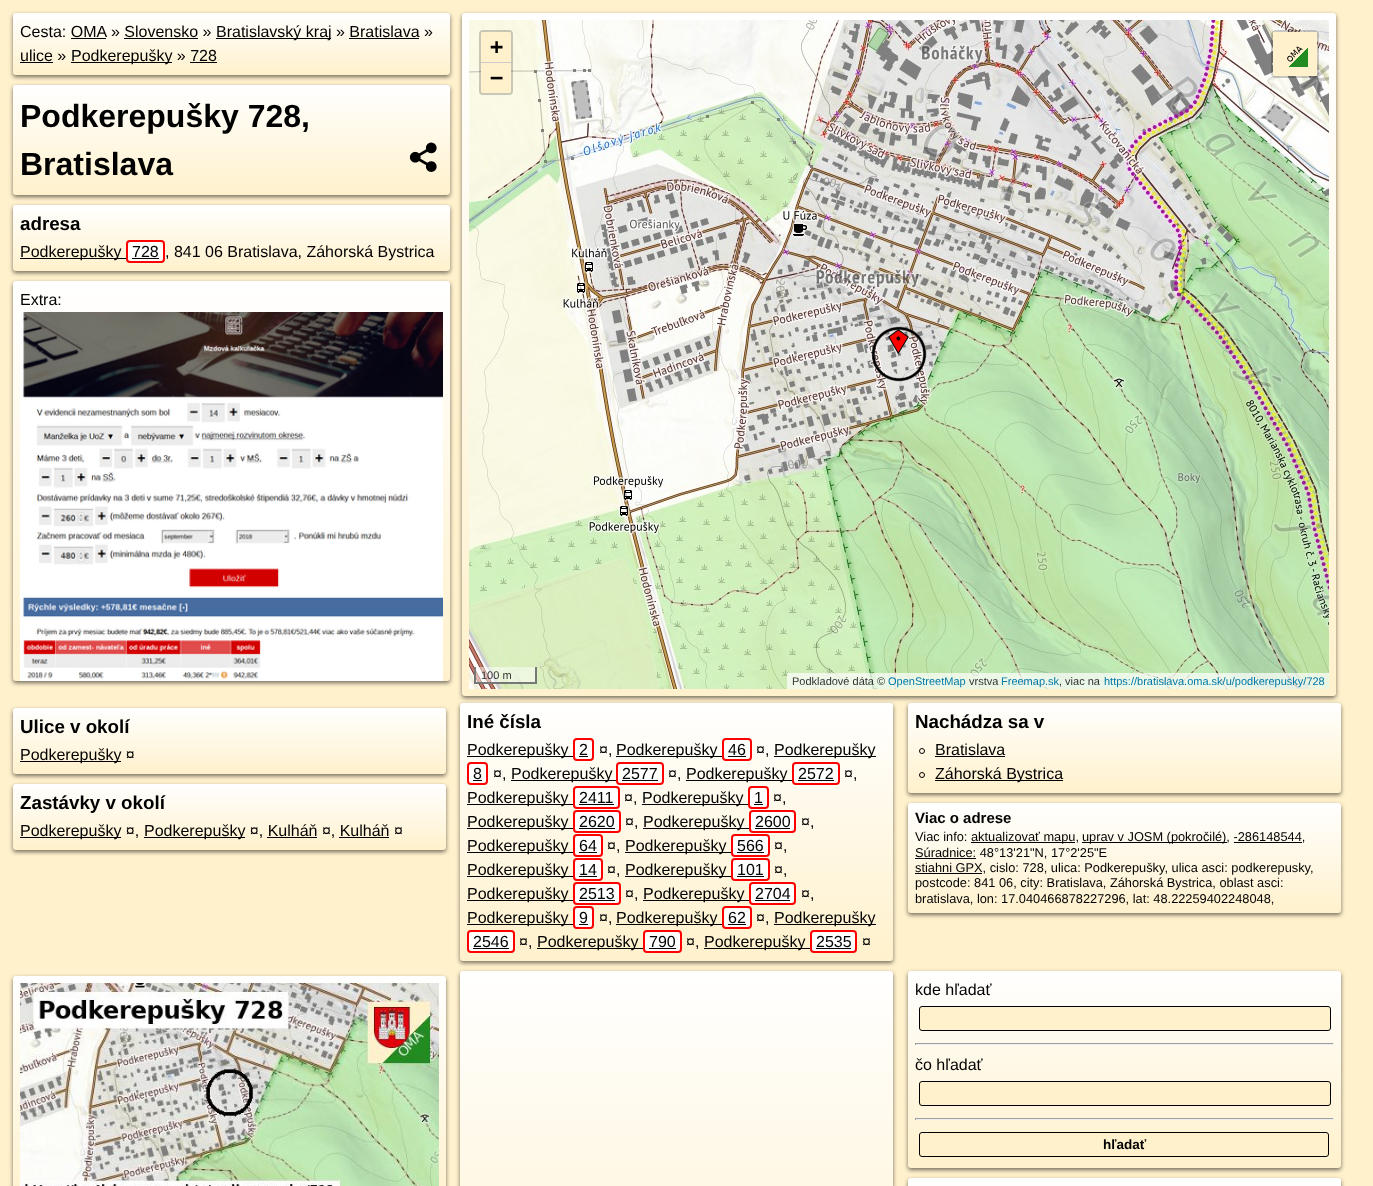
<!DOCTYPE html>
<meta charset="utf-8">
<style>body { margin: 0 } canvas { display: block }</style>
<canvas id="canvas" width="1373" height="1186"></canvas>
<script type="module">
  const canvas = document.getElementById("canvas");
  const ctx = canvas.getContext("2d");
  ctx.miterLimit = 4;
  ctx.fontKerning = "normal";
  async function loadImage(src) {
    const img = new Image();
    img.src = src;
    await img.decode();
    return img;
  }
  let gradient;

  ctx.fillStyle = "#fff1cc";
  ctx.fillRect(0, 0, 1373, 1186);
  ctx.fillStyle = "rgba(0, 0, 0, 0.55)";
  ctx.filter = "blur(2px)";
  ctx.beginPath();
  ctx.roundRect(13, 15, 437, 62, 3);
  ctx.fill();
  ctx.filter = "none";
  gradient = ctx.createLinearGradient(232, 13, 232, 75);
  gradient.addColorStop(0, "#ffffff");
  gradient.addColorStop(1, "#fff1cc");
  ctx.fillStyle = gradient;
  ctx.beginPath();
  ctx.roundRect(13, 13, 437, 62, 3);
  ctx.fill();
  ctx.font = "16px Liberation Sans";
  ctx.fillStyle = "#000000";
  ctx.fillText("Cesta: OMA", 20, 37);
  ctx.fillText("» Slovensko »", 111, 37);
  ctx.fillRect(216, 38, 115, 1);
  ctx.fillText("Bratislavský kraj » Bratislava »", 216, 37);
  ctx.fillRect(71, 38, 35, 1);
  ctx.fillRect(124, 38, 74, 1);
  ctx.fillRect(349, 38, 70, 1);
  ctx.fillText("ulice »", 20, 61);
  ctx.fillRect(20, 62, 33, 1);
  ctx.fillRect(71, 62, 101, 1);
  ctx.fillText("Podkerepušky » 728", 71, 61);
  ctx.fillRect(190, 62, 27, 1);
  ctx.fillStyle = "rgba(0, 0, 0, 0.55)";
  ctx.filter = "blur(2px)";
  ctx.beginPath();
  ctx.roundRect(13, 87, 437, 110, 3);
  ctx.fill();
  ctx.filter = "none";
  gradient = ctx.createLinearGradient(232, 85, 232, 195);
  gradient.addColorStop(0, "#ffffff");
  gradient.addColorStop(1, "#fff1cc");
  ctx.fillStyle = gradient;
  ctx.beginPath();
  ctx.roundRect(13, 85, 437, 110, 3);
  ctx.fill();
  ctx.font = "bold 32px Liberation Sans";
  ctx.fillStyle = "#000000";
  ctx.fillText("Podkerepušky 728,", 20, 127);
  ctx.fillText("Bratislava", 20, 175);
  ctx.drawImage(await loadImage("img1.png"), 409, 142, 28, 30);
  ctx.fillStyle = "rgba(0, 0, 0, 0.55)";
  ctx.filter = "blur(2px)";
  ctx.beginPath();
  ctx.roundRect(13, 207, 437, 66, 3);
  ctx.fill();
  ctx.filter = "none";
  gradient = ctx.createLinearGradient(232, 205, 232, 271);
  gradient.addColorStop(0, "#ffffff");
  gradient.addColorStop(1, "#fff1cc");
  ctx.fillStyle = gradient;
  ctx.beginPath();
  ctx.roundRect(13, 205, 437, 66, 3);
  ctx.fill();
  ctx.font = "bold 18.75px Liberation Sans";
  ctx.fillStyle = "#000000";
  ctx.fillText("adresa", 20, 230);
  ctx.fillRect(20, 258, 106, 1);
  ctx.font = "16px Liberation Sans";
  ctx.fillText("Podkerepušky", 20, 257);
  ctx.fillStyle = "#ffffff";
  ctx.beginPath();
  ctx.roundRect(127, 241, 37, 21, 3);
  ctx.fill();
  ctx.strokeStyle = "#ff0000";
  ctx.lineWidth = 2;
  ctx.stroke();
  ctx.fillStyle = "#000000";
  ctx.fillText("728", 132, 257);
  ctx.fillRect(132, 258, 27, 1);
  ctx.fillText(", 841 06 Bratislava, Záhorská Bystrica", 165, 257);
  ctx.fillStyle = "rgba(0, 0, 0, 0.55)";
  ctx.filter = "blur(2px)";
  ctx.beginPath();
  ctx.roundRect(13, 283, 437, 400, 3);
  ctx.fill();
  ctx.filter = "none";
  gradient = ctx.createLinearGradient(231, 281, 232, 681);
  gradient.addColorStop(0, "#ffffff");
  gradient.addColorStop(1, "#fff1cc");
  ctx.fillStyle = gradient;
  ctx.beginPath();
  ctx.roundRect(13, 281, 437, 400, 3);
  ctx.fill();
  ctx.fillStyle = "#000000";
  ctx.fillText("Extra:", 20, 305);
  ctx.drawImage(await loadImage("img2.png"), 20, 312, 423, 369);
  ctx.fillStyle = "rgba(0, 0, 0, 0.55)";
  ctx.filter = "blur(2px)";
  ctx.beginPath();
  ctx.roundRect(462, 15, 874, 683, 3);
  ctx.fill();
  ctx.filter = "none";
  gradient = ctx.createLinearGradient(899, 13, 899, 696);
  gradient.addColorStop(0, "#ffffff");
  gradient.addColorStop(1, "#fff1cc");
  ctx.fillStyle = gradient;
  ctx.beginPath();
  ctx.roundRect(462, 13, 874, 683, 3);
  ctx.fill();
  ctx.drawImage(await loadImage("img3.png"), 469, 20, 143, 189);
  ctx.drawImage(await loadImage("img4.png"), 612, 20, 256, 189);
  ctx.drawImage(await loadImage("img5.png"), 868, 20, 256, 189);
  ctx.drawImage(await loadImage("img6.png"), 1124, 20, 205, 189);
  ctx.drawImage(await loadImage("img7.png"), 469, 209, 143, 256);
  ctx.drawImage(await loadImage("img8.png"), 612, 209, 256, 256);
  ctx.drawImage(await loadImage("img9.png"), 868, 209, 256, 256);
  ctx.drawImage(await loadImage("img10.png"), 1124, 209, 205, 256);
  ctx.drawImage(await loadImage("img11.png"), 469, 465, 143, 224);
  ctx.drawImage(await loadImage("img12.png"), 612, 465, 256, 224);
  ctx.drawImage(await loadImage("img13.png"), 868, 465, 256, 224);
  ctx.drawImage(await loadImage("img14.png"), 1124, 465, 205, 224);
  ctx.drawImage(await loadImage("img15.png"), 871, 326, 56, 56);
  ctx.drawImage(await loadImage("img16.png"), 888, 329, 21, 25);
  ctx.beginPath();
  ctx.roundRect(480, 31, 32, 63, 3);
  ctx.strokeStyle = "rgba(0, 0, 0, 0.2)";
  ctx.stroke();
  ctx.fillStyle = "#fff1cc";
  ctx.beginPath();
  ctx.roundRect(481, 32, 30, 31, [2, 2, 0, 0]);
  ctx.fill();
  ctx.fillStyle = "#cccccc";
  ctx.fillRect(481, 62, 30, 1);
  ctx.font = "bold 22px DejaVu Sans Mono";
  ctx.fillStyle = "#000000";
  ctx.fillText("+", 490, 54);
  ctx.fillStyle = "#fff1cc";
  ctx.beginPath();
  ctx.roundRect(481, 63, 30, 30, [0, 0, 2, 2]);
  ctx.fill();
  ctx.fillStyle = "#000000";
  ctx.fillText("−", 490, 85);
  ctx.beginPath();
  ctx.roundRect(1272, 31, 46, 46, 4);
  ctx.stroke();
  ctx.fillStyle = "#fff1cc";
  ctx.fillRect(1273, 32, 44, 44);
  ctx.drawImage(await loadImage("img17.png"), 1287, 46, 21, 21);
  ctx.fillStyle = "rgba(255, 255, 255, 0.5)";
  ctx.fillRect(476, 667, 59, 15);
  ctx.fillStyle = "#777777";
  ctx.fillRect(535, 667, 2, 17);
  ctx.fillRect(474, 682, 63, 2);
  ctx.fillRect(474, 667, 2, 17);
  ctx.font = "11px Liberation Sans";
  ctx.fillStyle = "#333333";
  ctx.fillText("100 m", 481, 679);
  ctx.fillStyle = "rgba(255, 255, 255, 0.7)";
  ctx.fillRect(787, 673, 542, 16);
  ctx.fillStyle = "#333333";
  ctx.fillText("Podkladové dáta ©", 792, 685);
  ctx.fillStyle = "#0078a8";
  ctx.fillText("OpenStreetMap", 888, 685);
  ctx.fillStyle = "#333333";
  ctx.fillText("vrstva", 969, 685);
  ctx.fillStyle = "#0078a8";
  ctx.fillText("Freemap.sk", 1001, 685);
  ctx.fillStyle = "#333333";
  ctx.fillText(", viac na", 1059, 685);
  ctx.fillStyle = "#0078a8";
  ctx.fillText("https://bratislava.oma.sk/u/podkerepusky/728", 1104, 685);
  ctx.fillStyle = "rgba(0, 0, 0, 0.55)";
  ctx.filter = "blur(2px)";
  ctx.beginPath();
  ctx.roundRect(13, 710, 433, 66, 3);
  ctx.fill();
  ctx.filter = "none";
  gradient = ctx.createLinearGradient(230, 708, 230, 774);
  gradient.addColorStop(0, "#ffffff");
  gradient.addColorStop(1, "#fff1cc");
  ctx.fillStyle = gradient;
  ctx.beginPath();
  ctx.roundRect(13, 708, 433, 66, 3);
  ctx.fill();
  ctx.font = "bold 18.75px Liberation Sans";
  ctx.fillStyle = "#000000";
  ctx.fillText("Ulice v okolí", 20, 733);
  ctx.fillRect(20, 761, 101, 1);
  ctx.font = "16px Liberation Sans";
  ctx.fillText("Podkerepušky ¤", 20, 760);
  ctx.fillStyle = "rgba(0, 0, 0, 0.55)";
  ctx.filter = "blur(2px)";
  ctx.beginPath();
  ctx.roundRect(460, 705, 433, 258, 3);
  ctx.fill();
  ctx.filter = "none";
  gradient = ctx.createLinearGradient(677, 703, 677, 961);
  gradient.addColorStop(0, "#ffffff");
  gradient.addColorStop(1, "#fff1cc");
  ctx.fillStyle = gradient;
  ctx.beginPath();
  ctx.roundRect(460, 703, 433, 258, 3);
  ctx.fill();
  ctx.font = "bold 18.75px Liberation Sans";
  ctx.fillStyle = "#000000";
  ctx.fillText("Iné čísla", 467, 728);
  ctx.fillRect(467, 756, 106, 1);
  ctx.font = "16px Liberation Sans";
  ctx.fillText("Podkerepušky", 467, 755);
  ctx.fillStyle = "#ffffff";
  ctx.beginPath();
  ctx.roundRect(574, 739, 19, 21, 3);
  ctx.fill();
  ctx.strokeStyle = "#ff0000";
  ctx.stroke();
  ctx.fillStyle = "#000000";
  ctx.fillText("2", 579, 755);
  ctx.fillRect(579, 756, 9, 1);
  ctx.fillText("¤,", 599, 755);
  ctx.fillRect(616, 756, 106, 1);
  ctx.fillText("Podkerepušky", 616, 755);
  ctx.fillStyle = "#ffffff";
  ctx.beginPath();
  ctx.roundRect(723, 739, 28, 21, 3);
  ctx.fill();
  ctx.stroke();
  ctx.fillStyle = "#000000";
  ctx.fillText("46", 728, 755);
  ctx.fillRect(728, 756, 18, 1);
  ctx.fillText("¤,", 756, 755);
  ctx.fillRect(774, 756, 102, 1);
  ctx.fillText("Podkerepušky", 774, 755);
  ctx.fillStyle = "#ffffff";
  ctx.beginPath();
  ctx.roundRect(468, 763, 19, 21, 3);
  ctx.fill();
  ctx.stroke();
  ctx.fillStyle = "#000000";
  ctx.fillText("8", 473, 779);
  ctx.fillRect(473, 780, 9, 1);
  ctx.fillText("¤,", 493, 779);
  ctx.fillRect(511, 780, 105, 1);
  ctx.fillText("Podkerepušky", 511, 779);
  ctx.fillStyle = "#ffffff";
  ctx.beginPath();
  ctx.roundRect(617, 763, 46, 21, 3);
  ctx.fill();
  ctx.stroke();
  ctx.fillStyle = "#000000";
  ctx.fillText("2577", 622, 779);
  ctx.fillRect(622, 780, 36, 1);
  ctx.fillText("¤,", 668, 779);
  ctx.fillRect(686, 780, 106, 1);
  ctx.fillText("Podkerepušky", 686, 779);
  ctx.fillStyle = "#ffffff";
  ctx.beginPath();
  ctx.roundRect(793, 763, 46, 21, 3);
  ctx.fill();
  ctx.stroke();
  ctx.fillStyle = "#000000";
  ctx.fillText("2572", 798, 779);
  ctx.fillRect(798, 780, 36, 1);
  ctx.fillText("¤,", 844, 779);
  ctx.fillRect(467, 804, 106, 1);
  ctx.fillText("Podkerepušky", 467, 803);
  ctx.fillStyle = "#ffffff";
  ctx.beginPath();
  ctx.roundRect(574, 787, 45, 21, 3);
  ctx.fill();
  ctx.stroke();
  ctx.fillStyle = "#000000";
  ctx.fillText("2411", 579, 803);
  ctx.fillRect(579, 804, 35, 1);
  ctx.fillText("¤,", 624, 803);
  ctx.fillRect(642, 804, 106, 1);
  ctx.fillText("Podkerepušky", 642, 803);
  ctx.fillStyle = "#ffffff";
  ctx.beginPath();
  ctx.roundRect(749, 787, 19, 21, 3);
  ctx.fill();
  ctx.stroke();
  ctx.fillStyle = "#000000";
  ctx.fillText("1", 754, 803);
  ctx.fillRect(754, 804, 9, 1);
  ctx.fillText("¤,", 773, 803);
  ctx.fillRect(467, 828, 106, 1);
  ctx.fillText("Podkerepušky", 467, 827);
  ctx.fillStyle = "#ffffff";
  ctx.beginPath();
  ctx.roundRect(574, 811, 46, 21, 3);
  ctx.fill();
  ctx.stroke();
  ctx.fillStyle = "#000000";
  ctx.fillText("2620", 579, 827);
  ctx.fillRect(579, 828, 36, 1);
  ctx.fillText("¤,", 625, 827);
  ctx.fillRect(643, 828, 106, 1);
  ctx.fillText("Podkerepušky", 643, 827);
  ctx.fillStyle = "#ffffff";
  ctx.beginPath();
  ctx.roundRect(750, 811, 45, 21, 3);
  ctx.fill();
  ctx.stroke();
  ctx.fillStyle = "#000000";
  ctx.fillText("2600", 755, 827);
  ctx.fillRect(755, 828, 35, 1);
  ctx.fillText("¤,", 801, 827);
  ctx.fillRect(467, 852, 106, 1);
  ctx.fillText("Podkerepušky", 467, 851);
  ctx.fillStyle = "#ffffff";
  ctx.beginPath();
  ctx.roundRect(574, 835, 28, 21, 3);
  ctx.fill();
  ctx.stroke();
  ctx.fillStyle = "#000000";
  ctx.fillText("64", 579, 851);
  ctx.fillRect(579, 852, 18, 1);
  ctx.fillText("¤,", 607, 851);
  ctx.fillRect(625, 852, 106, 1);
  ctx.fillText("Podkerepušky", 625, 851);
  ctx.fillStyle = "#ffffff";
  ctx.beginPath();
  ctx.roundRect(732, 835, 37, 21, 3);
  ctx.fill();
  ctx.stroke();
  ctx.fillStyle = "#000000";
  ctx.fillText("566", 737, 851);
  ctx.fillRect(737, 852, 27, 1);
  ctx.fillText("¤,", 774, 851);
  ctx.fillRect(467, 876, 106, 1);
  ctx.fillText("Podkerepušky", 467, 875);
  ctx.fillStyle = "#ffffff";
  ctx.beginPath();
  ctx.roundRect(574, 859, 28, 21, 3);
  ctx.fill();
  ctx.stroke();
  ctx.fillStyle = "#000000";
  ctx.fillText("14", 579, 875);
  ctx.fillRect(579, 876, 18, 1);
  ctx.fillText("¤,", 607, 875);
  ctx.fillRect(625, 876, 106, 1);
  ctx.fillText("Podkerepušky", 625, 875);
  ctx.fillStyle = "#ffffff";
  ctx.beginPath();
  ctx.roundRect(732, 859, 37, 21, 3);
  ctx.fill();
  ctx.stroke();
  ctx.fillStyle = "#000000";
  ctx.fillText("101", 737, 875);
  ctx.fillRect(737, 876, 27, 1);
  ctx.fillText("¤,", 774, 875);
  ctx.fillRect(467, 900, 106, 1);
  ctx.fillText("Podkerepušky", 467, 899);
  ctx.fillStyle = "#ffffff";
  ctx.beginPath();
  ctx.roundRect(574, 883, 46, 21, 3);
  ctx.fill();
  ctx.stroke();
  ctx.fillStyle = "#000000";
  ctx.fillText("2513", 579, 899);
  ctx.fillRect(579, 900, 36, 1);
  ctx.fillText("¤,", 625, 899);
  ctx.fillRect(643, 900, 106, 1);
  ctx.fillText("Podkerepušky", 643, 899);
  ctx.fillStyle = "#ffffff";
  ctx.beginPath();
  ctx.roundRect(750, 883, 45, 21, 3);
  ctx.fill();
  ctx.stroke();
  ctx.fillStyle = "#000000";
  ctx.fillText("2704", 755, 899);
  ctx.fillRect(755, 900, 35, 1);
  ctx.fillText("¤,", 801, 899);
  ctx.fillRect(467, 924, 106, 1);
  ctx.fillText("Podkerepušky", 467, 923);
  ctx.fillStyle = "#ffffff";
  ctx.beginPath();
  ctx.roundRect(574, 907, 19, 21, 3);
  ctx.fill();
  ctx.stroke();
  ctx.fillStyle = "#000000";
  ctx.fillText("9", 579, 923);
  ctx.fillRect(579, 924, 9, 1);
  ctx.fillText("¤,", 599, 923);
  ctx.fillRect(616, 924, 106, 1);
  ctx.fillText("Podkerepušky", 616, 923);
  ctx.fillStyle = "#ffffff";
  ctx.beginPath();
  ctx.roundRect(723, 907, 28, 21, 3);
  ctx.fill();
  ctx.stroke();
  ctx.fillStyle = "#000000";
  ctx.fillText("62", 728, 923);
  ctx.fillRect(728, 924, 18, 1);
  ctx.fillText("¤,", 756, 923);
  ctx.fillRect(774, 924, 102, 1);
  ctx.fillText("Podkerepušky", 774, 923);
  ctx.fillStyle = "#ffffff";
  ctx.beginPath();
  ctx.roundRect(468, 931, 46, 21, 3);
  ctx.fill();
  ctx.stroke();
  ctx.fillStyle = "#000000";
  ctx.fillText("2546", 473, 947);
  ctx.fillRect(473, 948, 36, 1);
  ctx.fillText("¤,", 519, 947);
  ctx.fillRect(537, 948, 106, 1);
  ctx.fillText("Podkerepušky", 537, 947);
  ctx.fillStyle = "#ffffff";
  ctx.beginPath();
  ctx.roundRect(644, 931, 37, 21, 3);
  ctx.fill();
  ctx.stroke();
  ctx.fillStyle = "#000000";
  ctx.fillText("790", 649, 947);
  ctx.fillRect(649, 948, 27, 1);
  ctx.fillText("¤,", 686, 947);
  ctx.fillRect(704, 948, 106, 1);
  ctx.fillText("Podkerepušky", 704, 947);
  ctx.fillStyle = "#ffffff";
  ctx.beginPath();
  ctx.roundRect(811, 931, 45, 21, 3);
  ctx.fill();
  ctx.stroke();
  ctx.fillStyle = "#000000";
  ctx.fillText("2535", 816, 947);
  ctx.fillRect(816, 948, 35, 1);
  ctx.fillText("¤", 862, 947);
  ctx.fillStyle = "rgba(0, 0, 0, 0.55)";
  ctx.filter = "blur(2px)";
  ctx.beginPath();
  ctx.roundRect(908, 705, 433, 90, 3);
  ctx.fill();
  ctx.filter = "none";
  gradient = ctx.createLinearGradient(1125, 703, 1125, 793);
  gradient.addColorStop(0, "#ffffff");
  gradient.addColorStop(1, "#fff1cc");
  ctx.fillStyle = gradient;
  ctx.beginPath();
  ctx.roundRect(908, 703, 433, 90, 3);
  ctx.fill();
  ctx.font = "bold 18.75px Liberation Sans";
  ctx.fillStyle = "#000000";
  ctx.fillText("Nachádza sa v", 915, 728);
  ctx.beginPath();
  ctx.arc(922, 751, 2.5, 0, Math.PI * 2);
  ctx.strokeStyle = "#000000";
  ctx.lineWidth = 1;
  ctx.stroke();
  ctx.font = "16px Liberation Sans";
  ctx.fillText("Bratislava", 935, 755);
  ctx.fillRect(935, 756, 70, 1);
  ctx.beginPath();
  ctx.arc(922, 775, 2.5, 0, Math.PI * 2);
  ctx.stroke();
  ctx.fillRect(935, 780, 128, 1);
  ctx.fillText("Záhorská Bystrica", 935, 779);
  ctx.fillStyle = "rgba(0, 0, 0, 0.55)";
  ctx.filter = "blur(2px)";
  ctx.beginPath();
  ctx.roundRect(13, 786, 433, 66, 3);
  ctx.fill();
  ctx.filter = "none";
  gradient = ctx.createLinearGradient(230, 784, 230, 850);
  gradient.addColorStop(0, "#ffffff");
  gradient.addColorStop(1, "#fff1cc");
  ctx.fillStyle = gradient;
  ctx.beginPath();
  ctx.roundRect(13, 784, 433, 66, 3);
  ctx.fill();
  ctx.font = "bold 18.75px Liberation Sans";
  ctx.fillStyle = "#000000";
  ctx.fillText("Zastávky v okolí", 20, 809);
  ctx.fillRect(20, 837, 101, 1);
  ctx.font = "16px Liberation Sans";
  ctx.fillText("Podkerepušky ¤,", 20, 836);
  ctx.fillRect(144, 837, 101, 1);
  ctx.fillText("Podkerepušky ¤, Kulháň ¤, Kulháň ¤", 144, 836);
  ctx.fillRect(267, 837, 50, 1);
  ctx.fillRect(339, 837, 50, 1);
  ctx.fillStyle = "rgba(0, 0, 0, 0.55)";
  ctx.filter = "blur(2px)";
  ctx.beginPath();
  ctx.roundRect(908, 805, 433, 110, 3);
  ctx.fill();
  ctx.filter = "none";
  gradient = ctx.createLinearGradient(1125, 803, 1125, 913);
  gradient.addColorStop(0, "#ffffff");
  gradient.addColorStop(1, "#fff1cc");
  ctx.fillStyle = gradient;
  ctx.beginPath();
  ctx.roundRect(908, 803, 433, 110, 3);
  ctx.fill();
  ctx.font = "bold 15px Liberation Sans";
  ctx.fillStyle = "#000000";
  ctx.fillText("Viac o adrese", 915, 823);
  ctx.font = "12.8px Liberation Sans";
  ctx.fillText("Viac info:", 915, 841);
  ctx.fillRect(971, 842, 104, 1);
  ctx.fillText("aktualizovať mapu,", 971, 841);
  ctx.fillRect(1082, 842, 145, 1);
  ctx.fillText("uprav v JOSM (pokročilé), -286148544,", 1082, 841);
  ctx.fillRect(1234, 842, 68, 1);
  ctx.fillRect(915, 858, 61, 1);
  ctx.fillText("Súradnice: 48°13'21\"N, 17°2'25\"E", 915, 857);
  ctx.fillRect(915, 873, 67, 1);
  ctx.fillText("stiahni GPX, cislo: 728, ulica: Podkerepušky, ulica asci: podkerepusky,", 915, 872);
  ctx.fillText("postcode: 841 06, city: Bratislava, Záhorská Bystrica, oblast asci:", 915, 887);
  ctx.fillText("bratislava, lon: 17.040466878227296, lat: 48.22259402248048,", 915, 903);
  ctx.fillStyle = "rgba(0, 0, 0, 0.55)";
  ctx.filter = "blur(2px)";
  ctx.beginPath();
  ctx.roundRect(13, 978, 433, 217, 3);
  ctx.fill();
  ctx.filter = "none";
  gradient = ctx.createLinearGradient(229, 976, 230, 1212);
  gradient.addColorStop(0, "#ffffff");
  gradient.addColorStop(1, "#fff1cc");
  ctx.fillStyle = gradient;
  ctx.beginPath();
  ctx.roundRect(13, 976, 433, 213, 3);
  ctx.fill();
  ctx.drawImage(await loadImage("img18.png"), 20, 983, 419, 203);
  ctx.fillStyle = "rgba(0, 0, 0, 0.55)";
  ctx.filter = "blur(2px)";
  ctx.beginPath();
  ctx.roundRect(460, 973, 433, 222, 3);
  ctx.fill();
  ctx.filter = "none";
  gradient = ctx.createLinearGradient(677, 971, 677, 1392);
  gradient.addColorStop(0, "#ffffff");
  gradient.addColorStop(1, "#fff1cc");
  ctx.fillStyle = gradient;
  ctx.beginPath();
  ctx.roundRect(460, 971, 433, 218, 3);
  ctx.fill();
  ctx.fillStyle = "rgba(0, 0, 0, 0.55)";
  ctx.filter = "blur(2px)";
  ctx.beginPath();
  ctx.roundRect(908, 973, 433, 197, 3);
  ctx.fill();
  ctx.filter = "none";
  gradient = ctx.createLinearGradient(1125, 971, 1125, 1168);
  gradient.addColorStop(0, "#ffffff");
  gradient.addColorStop(1, "#fff1cc");
  ctx.fillStyle = gradient;
  ctx.beginPath();
  ctx.roundRect(908, 971, 433, 197, 3);
  ctx.fill();
  ctx.font = "16px Liberation Sans";
  ctx.fillStyle = "#000000";
  ctx.fillText("kde hľadať", 915, 995);
  ctx.fillStyle = "#fff1cc";
  ctx.beginPath();
  ctx.roundRect(919.5, 1006.5, 411, 24, 2.5);
  ctx.fill();
  ctx.stroke();
  ctx.fillStyle = "#9f9f9f";
  ctx.fillRect(915, 1043, 419, 1);
  ctx.fillStyle = "#eeeeee";
  ctx.fillRect(1333, 1043, 1, 2);
  ctx.fillRect(915, 1044, 419, 1);
  ctx.fillStyle = "#9f9f9f";
  ctx.fillRect(915, 1043, 1, 2);
  ctx.fillStyle = "#000000";
  ctx.fillText("čo hľadať", 915, 1070);
  ctx.fillStyle = "#fff1cc";
  ctx.beginPath();
  ctx.roundRect(919.5, 1081.5, 411, 24, 2.5);
  ctx.fill();
  ctx.stroke();
  ctx.fillStyle = "#9f9f9f";
  ctx.fillRect(915, 1118, 419, 1);
  ctx.fillStyle = "#eeeeee";
  ctx.fillRect(1333, 1118, 1, 2);
  ctx.fillRect(915, 1119, 419, 1);
  ctx.fillStyle = "#9f9f9f";
  ctx.fillRect(915, 1118, 1, 2);
  ctx.fillStyle = "#fff1cc";
  ctx.beginPath();
  ctx.roundRect(919.5, 1132.5, 409, 24, 2.5);
  ctx.fill();
  ctx.stroke();
  ctx.font = "bold 13.5px Liberation Sans";
  ctx.fillStyle = "#000000";
  ctx.fillText("hľadať", 1103, 1149);
  ctx.fillStyle = "rgba(0, 0, 0, 0.55)";
  ctx.filter = "blur(2px)";
  ctx.beginPath();
  ctx.roundRect(908, 1180, 433, 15, 3);
  ctx.fill();
  ctx.filter = "none";
  gradient = ctx.createLinearGradient(1125, 1178, 1125, 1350);
  gradient.addColorStop(0, "#ffffff");
  gradient.addColorStop(1, "#fff1cc");
  ctx.fillStyle = gradient;
  ctx.beginPath();
  ctx.roundRect(908, 1178, 433, 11, 3);
  ctx.fill();
</script>
